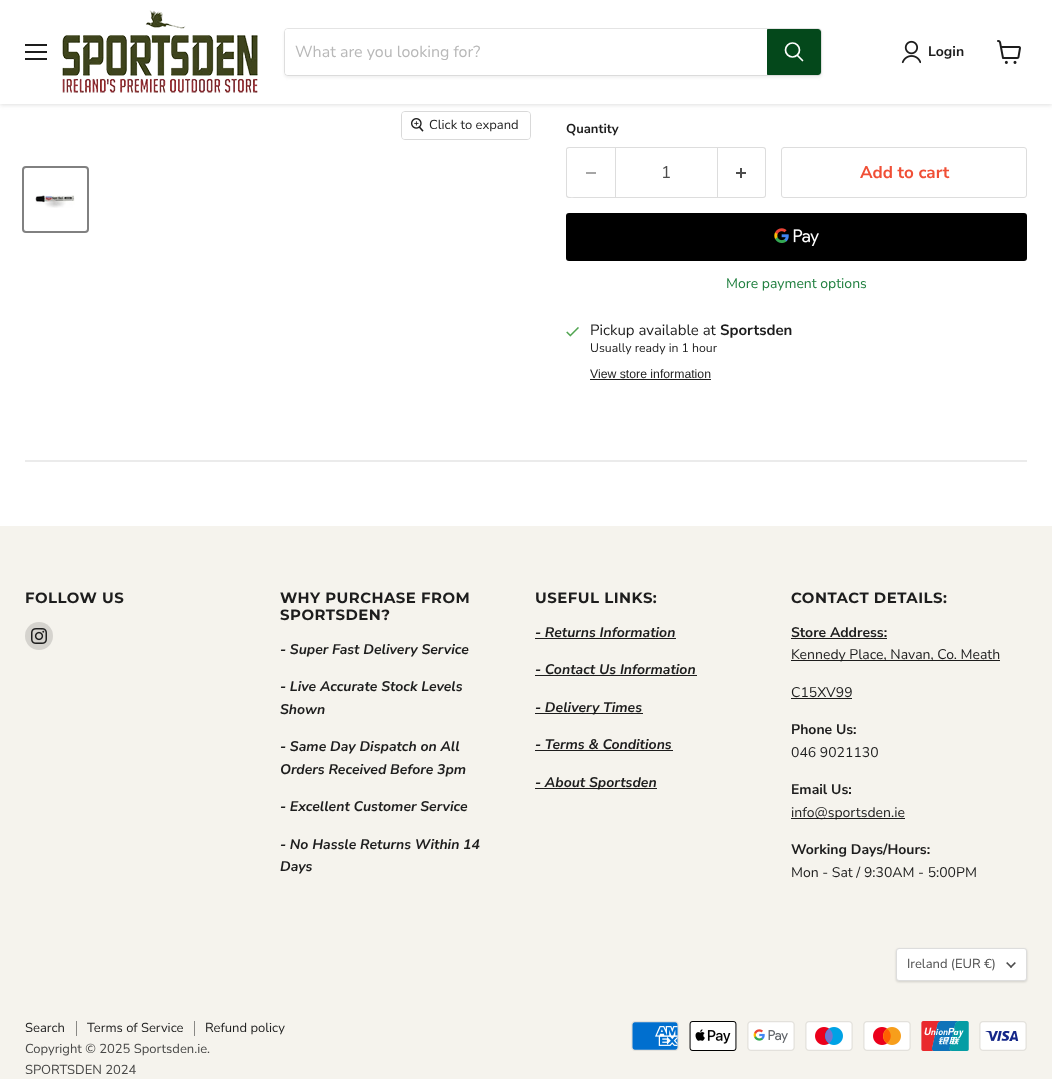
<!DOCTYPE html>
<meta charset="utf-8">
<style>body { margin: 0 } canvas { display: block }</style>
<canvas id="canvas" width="1052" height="1079"></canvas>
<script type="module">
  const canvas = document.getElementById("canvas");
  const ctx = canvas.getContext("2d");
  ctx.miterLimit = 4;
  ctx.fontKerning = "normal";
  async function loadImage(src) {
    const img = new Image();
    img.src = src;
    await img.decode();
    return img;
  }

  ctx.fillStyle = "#ffffff";
  ctx.fillRect(0, 0, 1052, 1079);
  ctx.beginPath();
  ctx.roundRect(401.5, 111.5, 129, 28, 3.5);
  ctx.strokeStyle = "#d9d9d9";
  ctx.stroke();
  ctx.fillStyle = "rgba(128, 128, 128, 0.25)";
  ctx.filter = "blur(2px)";
  ctx.beginPath();
  ctx.rect(0, 1, 1052, 104);
  ctx.fill();
  ctx.filter = "none";
  ctx.fillStyle = "#ffffff";
  ctx.fillRect(0, 0, 1052, 104);
  ctx.fillStyle = "#1d1d1d";
  ctx.fillRect(25, 44, 22, 2);
  ctx.fillRect(25, 51, 22, 2);
  ctx.fillRect(25, 58, 22, 2);
  ctx.drawImage(await loadImage("img1.png"), 62, 10, 196, 83);
  ctx.fillStyle = "rgba(128, 128, 128, 0.11)";
  ctx.filter = "blur(1.5px)";
  ctx.beginPath();
  ctx.roundRect(284, 30, 538, 48, 4);
  ctx.fill();
  ctx.filter = "none";
  ctx.beginPath();
  ctx.roundRect(284.5, 28.5, 537, 47, 3.5);
  ctx.strokeStyle = "rgba(128, 128, 128, 0.2)";
  ctx.stroke();
  ctx.fillStyle = "#ffffff";
  ctx.beginPath();
  ctx.roundRect(285, 29, 482, 46, [3, 0, 0, 3]);
  ctx.fill();
  ctx.font = "16px Nunito Sans";
  ctx.fillStyle = "#b8b8b8";
  ctx.fillText("What are you looking for?", 295, 57);
  ctx.fillStyle = "#04481b";
  ctx.beginPath();
  ctx.roundRect(767.5, 29.5, 53, 45, [0, 2.5, 2.5, 0]);
  ctx.fill();
  ctx.strokeStyle = "#04481b";
  ctx.stroke();
  ctx.beginPath();
  ctx.moveTo(802.5, 60.5);
  ctx.lineTo(797.5, 55.5);
  ctx.strokeStyle = "#ffffff";
  ctx.lineWidth = 1.7;
  ctx.lineCap = "round";
  ctx.stroke();
  ctx.beginPath();
  ctx.arc(792.5, 50, 7, 0, Math.PI * 2);
  ctx.stroke();
  ctx.drawImage(await loadImage("img2.png"), 901, 40, 20, 24);
  ctx.font = "bold 14px Nunito Sans";
  ctx.fillStyle = "#1d1d1d";
  ctx.fillText("Login", 928, 56);
  ctx.drawImage(await loadImage("img3.png"), 997, 40, 24, 24);
  ctx.fillStyle = "rgba(255, 255, 255, 0.9)";
  ctx.beginPath();
  ctx.roundRect(402, 112, 128, 27, 3);
  ctx.fill();
  ctx.drawImage(await loadImage("img4.png"), 411, 118, 13, 14);
  ctx.font = "13px Nunito Sans";
  ctx.fillStyle = "#1d1d1d";
  ctx.fillText("Click to expand", 429, 129);
  ctx.beginPath();
  ctx.roundRect(23, 167, 65, 65, 3);
  ctx.strokeStyle = "#818181";
  ctx.lineWidth = 2;
  ctx.stroke();
  ctx.drawImage(await loadImage("img5.png"), 35, 195, 40, 13);
  ctx.font = "bold 13px Nunito Sans";
  ctx.fillText("Quantity", 566, 133);
  ctx.fillStyle = "#dddddd";
  ctx.beginPath();
  ctx.moveTo(569, 147);
  ctx.lineTo(615, 147);
  ctx.lineTo(615, 198);
  ctx.lineTo(569, 198);
  ctx.bezierCurveTo(567, 198, 566, 197, 566, 195);
  ctx.lineTo(566, 150);
  ctx.bezierCurveTo(566, 148, 567, 147, 569, 147);
  ctx.closePath();
  ctx.moveTo(569, 148);
  ctx.lineTo(615, 148);
  ctx.lineTo(615, 197);
  ctx.lineTo(577, 197);
  ctx.bezierCurveTo(573, 197, 567, 198, 567, 195);
  ctx.lineTo(567, 149);
  ctx.closePath();
  ctx.fill("evenodd");
  ctx.fillStyle = "#a6a6a6";
  ctx.fillRect(586, 172, 10, 2);
  ctx.strokeStyle = "#dddddd";
  ctx.lineWidth = 1;
  ctx.strokeRect(615.5, 147.5, 102, 50);
  ctx.font = "17px Nunito Sans";
  ctx.fillStyle = "#4d4d4d";
  ctx.fillText("1", 661, 178);
  ctx.fillStyle = "#dddddd";
  ctx.beginPath();
  ctx.moveTo(718, 147);
  ctx.lineTo(763, 147);
  ctx.bezierCurveTo(765, 147, 766, 148, 766, 150);
  ctx.lineTo(766, 195);
  ctx.bezierCurveTo(766, 197, 765, 198, 763, 198);
  ctx.lineTo(718, 198);
  ctx.closePath();
  ctx.moveTo(718, 148);
  ctx.lineTo(763, 148);
  ctx.bezierCurveTo(764, 148, 765, 149, 765, 150);
  ctx.lineTo(765, 195);
  ctx.bezierCurveTo(765, 196, 764, 197, 763, 197);
  ctx.lineTo(718, 197);
  ctx.closePath();
  ctx.fill("evenodd");
  ctx.drawImage(await loadImage("img6.png"), 736, 168, 10, 10);
  ctx.beginPath();
  ctx.roundRect(781.5, 147.5, 245, 50, 2.5);
  ctx.stroke();
  ctx.font = "bold 17px Nunito Sans";
  ctx.fillStyle = "#f04f36";
  ctx.fillText("Add to cart", 860, 178);
  ctx.fillStyle = "#000000";
  ctx.beginPath();
  ctx.roundRect(566, 213, 461, 48, 3);
  ctx.fill();
  ctx.drawImage(await loadImage("img7.png"), 774, 228, 45, 18);
  ctx.font = "14px Nunito Sans";
  ctx.fillStyle = "#218040";
  ctx.fillText("More payment options", 726, 288);
  ctx.drawImage(await loadImage("img8.png"), 566, 327, 13, 10);
  ctx.font = "15px Nunito Sans";
  ctx.fillStyle = "#1d1d1d";
  ctx.fillText("Pickup available at", 590, 335);
  ctx.font = "bold 15px Nunito Sans";
  ctx.fillText("Sportsden", 720, 335);
  ctx.font = "12.25px Nunito Sans";
  ctx.fillText("Usually ready in 1 hour", 590, 352);
  ctx.font = "12.25px Liberation Sans";
  ctx.fillText("View store information", 590, 378);
  ctx.fillRect(590, 379, 121, 1);
  ctx.fillStyle = "#ebebeb";
  ctx.fillRect(25, 460, 1002, 2);
  ctx.fillStyle = "#f5f3ed";
  ctx.fillRect(0, 526, 1052, 553);
  ctx.letterSpacing = "0.5px";
  ctx.font = "bold 14.9px Montserrat";
  ctx.fillStyle = "#1d1d1d";
  ctx.fillText("FOLLOW US", 25, 603);
  ctx.fillStyle = "#d5d3ce";
  ctx.beginPath();
  ctx.arc(39, 636, 14, 0, Math.PI * 2);
  ctx.fill();
  ctx.drawImage(await loadImage("img9.png"), 31, 628, 16, 16);
  ctx.fillStyle = "#1d1d1d";
  ctx.fillText("WHY PURCHASE FROM", 280, 603);
  ctx.fillText("SPORTSDEN?", 280, 620);
  ctx.letterSpacing = "0px";
  ctx.font = "italic bold 14px Nunito Sans";
  ctx.fillText("- Super Fast Delivery Service", 280, 654);
  ctx.fillText("- Live Accurate Stock Levels", 280, 691);
  ctx.fillText("Shown", 280, 714);
  ctx.fillText("- Same Day Dispatch on All", 280, 751);
  ctx.fillText("Orders Received Before 3pm", 280, 774);
  ctx.fillText("- Excellent Customer Service", 280, 811);
  ctx.fillText("- No Hassle Returns Within 14", 280, 849);
  ctx.fillText("Days", 280, 871);
  ctx.letterSpacing = "0.5px";
  ctx.font = "bold 14.9px Montserrat";
  ctx.fillText("USEFUL LINKS:", 535, 603);
  ctx.letterSpacing = "0px";
  ctx.font = "italic bold 14px Nunito Sans";
  ctx.fillText("- Returns Information", 535, 637);
  ctx.fillRect(535, 638, 141, 1);
  ctx.fillText("- Contact Us Information", 535, 674);
  ctx.fillRect(535, 675, 162, 1);
  ctx.fillRect(535, 713, 108, 1);
  ctx.fillText("- Delivery Times", 535, 712);
  ctx.fillText("- Terms & Conditions", 535, 749);
  ctx.fillRect(535, 750, 138, 1);
  ctx.fillRect(535, 788, 122, 1);
  ctx.fillText("- About Sportsden", 535, 787);
  ctx.letterSpacing = "0.5px";
  ctx.font = "bold 14.9px Montserrat";
  ctx.fillText("CONTACT DETAILS:", 791, 603);
  ctx.letterSpacing = "0px";
  ctx.font = "bold 14px Nunito Sans";
  ctx.fillText("Store Address:", 791, 637);
  ctx.fillRect(791, 638, 96, 1);
  ctx.fillRect(791, 660, 209, 1);
  ctx.font = "14px Nunito Sans";
  ctx.fillText("Kennedy Place, Navan, Co. Meath", 791, 659);
  ctx.fillText("C15XV99", 791, 697);
  ctx.fillRect(791, 698, 61, 1);
  ctx.font = "bold 14px Nunito Sans";
  ctx.fillText("Phone Us:", 791, 734);
  ctx.font = "14px Nunito Sans";
  ctx.fillText("046 9021130", 791, 757);
  ctx.font = "bold 14px Nunito Sans";
  ctx.fillText("Email Us:", 791, 794);
  ctx.fillRect(791, 818, 114, 1);
  ctx.font = "14px Nunito Sans";
  ctx.fillText("info@sportsden.ie", 791, 817);
  ctx.font = "bold 14px Nunito Sans";
  ctx.fillText("Working Days/Hours:", 791, 854);
  ctx.font = "14px Nunito Sans";
  ctx.fillText("Mon - Sat / 9:30AM - 5:00PM", 791, 877);
  ctx.fillStyle = "rgba(0, 0, 0, 0.15)";
  ctx.filter = "blur(1px)";
  ctx.beginPath();
  ctx.roundRect(896, 949, 131, 33, 3);
  ctx.fill();
  ctx.filter = "none";
  ctx.fillStyle = "#ffffff";
  ctx.beginPath();
  ctx.roundRect(896.5, 948.5, 130, 32, 2.5);
  ctx.fill();
  ctx.stroke();
  ctx.font = "13px Nunito Sans";
  ctx.fillStyle = "#4d4d4d";
  ctx.fillText("Ireland (EUR €)", 907, 968);
  ctx.drawImage(await loadImage("img10.png"), 1006, 962, 10, 6);
  ctx.fillStyle = "#898885";
  ctx.fillRect(76, 1021, 1, 15);
  ctx.fillStyle = "#1d1d1d";
  ctx.fillText("Search", 25, 1032);
  ctx.fillStyle = "#898885";
  ctx.fillRect(194, 1021, 1, 15);
  ctx.fillStyle = "#1d1d1d";
  ctx.fillText("Terms of Service", 87, 1032);
  ctx.fillText("Refund policy", 205, 1032);
  ctx.fillStyle = "#484847";
  ctx.fillText("Copyright © 2025 Sportsden.ie.", 25, 1053);
  ctx.fillText("SPORTSDEN 2024", 25, 1074);
  ctx.drawImage(await loadImage("img11.png"), 631, 1021, 48, 30);
  ctx.drawImage(await loadImage("img12.png"), 689, 1021, 48, 30);
  ctx.drawImage(await loadImage("img13.png"), 747, 1021, 48, 30);
  ctx.drawImage(await loadImage("img14.png"), 805, 1021, 48, 30);
  ctx.drawImage(await loadImage("img15.png"), 863, 1021, 48, 30);
  ctx.drawImage(await loadImage("img16.png"), 921, 1021, 48, 30);
  ctx.drawImage(await loadImage("img17.png"), 979, 1021, 48, 30);
</script>
